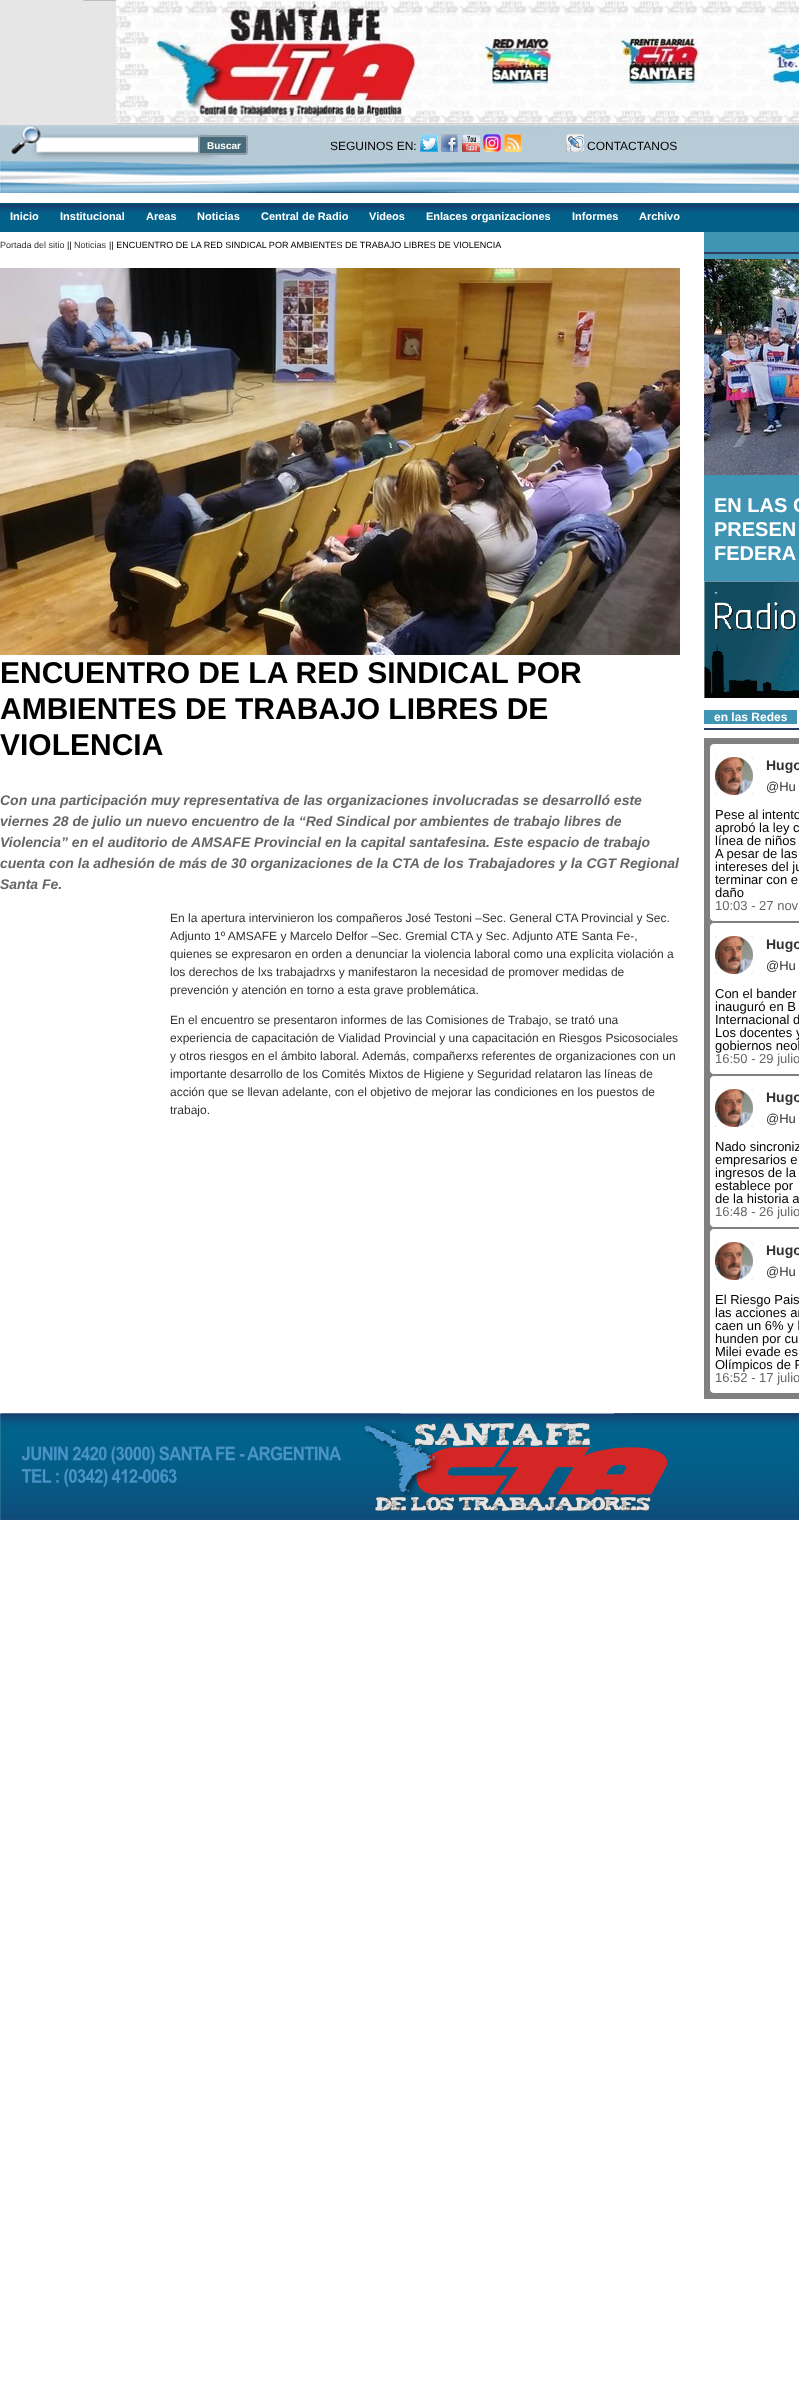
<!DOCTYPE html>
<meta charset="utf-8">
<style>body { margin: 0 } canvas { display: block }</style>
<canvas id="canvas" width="799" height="2401"></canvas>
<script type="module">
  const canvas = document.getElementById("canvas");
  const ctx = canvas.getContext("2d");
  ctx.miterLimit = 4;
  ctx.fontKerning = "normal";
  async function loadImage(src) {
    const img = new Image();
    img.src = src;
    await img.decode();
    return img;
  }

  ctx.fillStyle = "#ffffff";
  ctx.fillRect(0, 0, 799, 2401);
  ctx.drawImage(await loadImage("img1.png"), 0, 0, 799, 125);
  ctx.drawImage(await loadImage("img2.png"), 0, 125, 799, 68);
  ctx.fillStyle = "#486b7c";
  ctx.beginPath();
  ctx.roundRect(199, 136, 48, 18, 2);
  ctx.fill();
  ctx.strokeStyle = "#8d9ea8";
  ctx.lineWidth = 2;
  ctx.stroke();
  ctx.font = "bold 10px Liberation Sans";
  ctx.fillStyle = "#ffffff";
  ctx.fillText("Buscar", 207, 149);
  ctx.font = "12px Liberation Sans";
  ctx.fillStyle = "#000000";
  ctx.fillText("SEGUINOS EN:", 330, 150);
  ctx.drawImage(await loadImage("img3.png"), 420, 134, 18, 18);
  ctx.drawImage(await loadImage("img4.png"), 441, 134, 17, 18);
  ctx.drawImage(await loadImage("img5.png"), 462, 134, 18, 18);
  ctx.drawImage(await loadImage("img6.png"), 483, 134, 18, 18);
  ctx.drawImage(await loadImage("img7.png"), 504, 134, 18, 18);
  ctx.drawImage(await loadImage("img8.png"), 566, 134, 18, 18);
  ctx.fillText("CONTACTANOS", 587, 150);
  ctx.fillStyle = "#026089";
  ctx.fillRect(0, 203, 799, 29);
  ctx.drawImage(await loadImage("img9.png"), 0, 203, 799, 10);
  ctx.font = "bold 11px Liberation Sans";
  ctx.fillStyle = "#ffffff";
  ctx.fillText("Inicio", 10, 220);
  ctx.fillText("Institucional", 60, 220);
  ctx.fillText("Areas", 146, 220);
  ctx.fillText("Noticias", 197, 220);
  ctx.fillText("Central de Radio", 261, 220);
  ctx.fillText("Videos", 369, 220);
  ctx.fillText("Enlaces organizaciones", 426, 220);
  ctx.fillText("Informes", 572, 220);
  ctx.fillText("Archivo", 639, 220);
  ctx.font = "9px Liberation Sans";
  ctx.fillStyle = "#333333";
  ctx.fillText("Portada del sitio", 0, 248);
  ctx.fillStyle = "#000000";
  ctx.fillText("||", 67, 248);
  ctx.fillStyle = "#333333";
  ctx.fillText("Noticias", 74, 248);
  ctx.fillStyle = "#000000";
  ctx.fillText("|| ENCUENTRO DE LA RED SINDICAL POR AMBIENTES DE TRABAJO LIBRES DE VIOLENCIA", 109, 248);
  ctx.drawImage(await loadImage("img10.png"), 0, 268, 680, 387);
  ctx.font = "bold 30px Liberation Sans";
  ctx.fillText("ENCUENTRO DE LA RED SINDICAL POR", 0, 683);
  ctx.fillText("AMBIENTES DE TRABAJO LIBRES DE", 0, 719);
  ctx.fillText("VIOLENCIA", 0, 755);
  ctx.font = "italic bold 14px Liberation Sans";
  ctx.fillStyle = "#666666";
  ctx.fillText("Con una participación muy representativa de las organizaciones involucradas se desarrolló este", 0, 805);
  ctx.fillText("viernes 28 de julio un nuevo encuentro de la “Red Sindical por ambientes de trabajo libres de", 0, 826);
  ctx.fillText("Violencia” en el auditorio de AMSAFE Provincial en la capital santafesina. Este espacio de trabajo", 0, 847);
  ctx.fillText("cuenta con la adhesión de más de 30 organizaciones de la CTA de los Trabajadores y la CGT Regional", 0, 868);
  ctx.fillText("Santa Fe.", 0, 889);
  ctx.font = "12px Liberation Sans";
  ctx.fillStyle = "#333333";
  ctx.fillText("En la apertura intervinieron los compañeros José Testoni –Sec. General CTA Provincial y Sec.", 170, 922);
  ctx.fillText("Adjunto 1º AMSAFE y Marcelo Delfor –Sec. Gremial CTA y Sec. Adjunto ATE Santa Fe-,", 170, 940);
  ctx.fillText("quienes se expresaron en orden a denunciar la violencia laboral como una explícita violación a", 170, 958);
  ctx.fillText("los derechos de lxs trabajadrxs y manifestaron la necesidad de promover medidas de", 170, 976);
  ctx.fillText("prevención y atención en torno a esta grave problemática.", 170, 994);
  ctx.fillText("En el encuentro se presentaron informes de las Comisiones de Trabajo, se trató una", 170, 1024);
  ctx.fillText("experiencia de capacitación de Vialidad Provincial y una capacitación en Riesgos Psicosociales", 170, 1042);
  ctx.fillText("y otros riesgos en el ámbito laboral. Además, compañerxs referentes de organizaciones con un", 170, 1060);
  ctx.fillText("importante desarrollo de los Comités Mixtos de Higiene y Seguridad relataron las líneas de", 170, 1078);
  ctx.fillText("acción que se llevan adelante, con el objetivo de mejorar las condiciones en los puestos de", 170, 1096);
  ctx.fillText("trabajo.", 170, 1114);
  ctx.fillStyle = "#4094b4";
  ctx.fillRect(704, 232, 95, 349);
  ctx.fillStyle = "#2d3b60";
  ctx.fillRect(704, 252, 95, 2);
  ctx.drawImage(await loadImage("img11.png"), 704, 259, 95, 216);
  ctx.font = "bold 20px Liberation Sans";
  ctx.fillStyle = "#ffffff";
  ctx.fillText("EN LAS C", 714, 512);
  ctx.fillText("PRESEN", 714, 536);
  ctx.fillText("FEDERA", 714, 560);
  ctx.drawImage(await loadImage("img12.png"), 704, 581, 95, 117);
  ctx.fillStyle = "#2d3b60";
  ctx.fillRect(704, 728, 95, 2);
  ctx.fillStyle = "#4094b4";
  ctx.fillRect(704, 710, 93, 14);
  ctx.font = "bold 12px Liberation Sans";
  ctx.fillStyle = "#ffffff";
  ctx.fillText("en las Redes", 714, 721);
  ctx.fillStyle = "#808080";
  ctx.fillRect(704, 738, 95, 661);
  ctx.fillStyle = "#ffffff";
  ctx.beginPath();
  ctx.roundRect(709.5, 743.5, 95, 178, 4.5);
  ctx.fill();
  ctx.strokeStyle = "#808080";
  ctx.lineWidth = 1;
  ctx.stroke();
  ctx.fillStyle = "#efefef";
  ctx.fillRect(715, 757, 38, 38);
  ctx.drawImage(await loadImage("img13.png"), 715, 757, 38, 38);
  ctx.font = "bold 14px Liberation Sans";
  ctx.fillStyle = "#333333";
  ctx.fillText("Hugo", 766, 770);
  ctx.font = "13px Liberation Sans";
  ctx.fillText("@Hu", 766, 791);
  ctx.fillStyle = "#000000";
  ctx.fillText("Pese al intento", 715, 819);
  ctx.fillText("aprobó la ley c", 715, 832);
  ctx.fillText("línea de niños", 715, 845);
  ctx.fillText("A pesar de las", 715, 858);
  ctx.fillText("intereses del ju", 715, 871);
  ctx.fillText("terminar con e", 715, 884);
  ctx.fillText("daño", 715, 897);
  ctx.fillStyle = "#666666";
  ctx.fillText("10:03 - 27 nov", 715, 910);
  ctx.fillStyle = "#ffffff";
  ctx.beginPath();
  ctx.roundRect(709.5, 922.5, 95, 152, 4.5);
  ctx.fill();
  ctx.stroke();
  ctx.fillStyle = "#efefef";
  ctx.fillRect(715, 936, 38, 38);
  ctx.drawImage(await loadImage("img13.png"), 715, 936, 38, 38);
  ctx.font = "bold 14px Liberation Sans";
  ctx.fillStyle = "#333333";
  ctx.fillText("Hugo", 766, 949);
  ctx.font = "13px Liberation Sans";
  ctx.fillText("@Hu", 766, 970);
  ctx.fillStyle = "#000000";
  ctx.fillText("Con el bander", 715, 998);
  ctx.fillText("inauguró en B", 715, 1011);
  ctx.fillText("Internacional d", 715, 1024);
  ctx.fillText("Los docentes y", 715, 1037);
  ctx.fillText("gobiernos neol", 715, 1050);
  ctx.fillStyle = "#666666";
  ctx.fillText("16:50 - 29 julio", 715, 1063);
  ctx.fillStyle = "#ffffff";
  ctx.beginPath();
  ctx.roundRect(709.5, 1075.5, 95, 152, 4.5);
  ctx.fill();
  ctx.stroke();
  ctx.fillStyle = "#efefef";
  ctx.fillRect(715, 1089, 38, 38);
  ctx.drawImage(await loadImage("img13.png"), 715, 1089, 38, 38);
  ctx.font = "bold 14px Liberation Sans";
  ctx.fillStyle = "#333333";
  ctx.fillText("Hugo", 766, 1102);
  ctx.font = "13px Liberation Sans";
  ctx.fillText("@Hu", 766, 1123);
  ctx.fillStyle = "#000000";
  ctx.fillText("Nado sincroniz", 715, 1151);
  ctx.fillText("empresarios e", 715, 1164);
  ctx.fillText("ingresos de la", 715, 1177);
  ctx.fillText("establece por", 715, 1190);
  ctx.fillText("de la historia a", 715, 1203);
  ctx.fillStyle = "#666666";
  ctx.fillText("16:48 - 26 julio", 715, 1216);
  ctx.fillStyle = "#ffffff";
  ctx.beginPath();
  ctx.roundRect(709.5, 1228.5, 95, 165, 4.5);
  ctx.fill();
  ctx.stroke();
  ctx.fillStyle = "#efefef";
  ctx.fillRect(715, 1242, 38, 38);
  ctx.drawImage(await loadImage("img13.png"), 715, 1242, 38, 38);
  ctx.font = "bold 14px Liberation Sans";
  ctx.fillStyle = "#333333";
  ctx.fillText("Hugo", 766, 1255);
  ctx.font = "13px Liberation Sans";
  ctx.fillText("@Hu", 766, 1276);
  ctx.fillStyle = "#000000";
  ctx.fillText("El Riesgo Pais", 715, 1304);
  ctx.fillText("las acciones ar", 715, 1317);
  ctx.fillText("caen un 6% y l", 715, 1330);
  ctx.fillText("hunden por cu", 715, 1343);
  ctx.fillText("Milei evade es", 715, 1356);
  ctx.fillText("Olímpicos de P", 715, 1369);
  ctx.fillStyle = "#666666";
  ctx.fillText("16:52 - 17 julio", 715, 1382);
  ctx.drawImage(await loadImage("img14.png"), 0, 1413, 799, 107);
</script>
